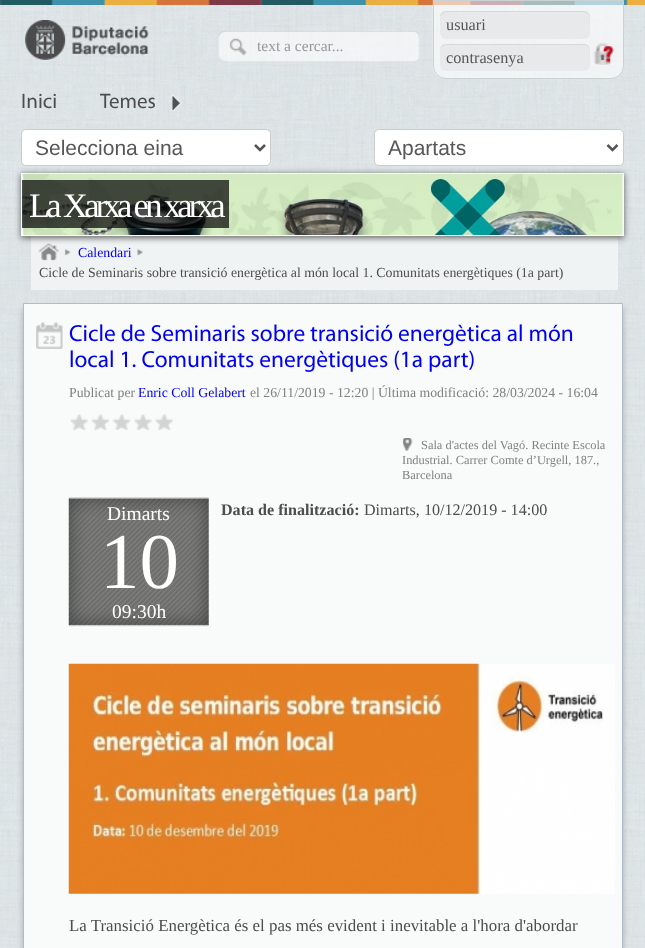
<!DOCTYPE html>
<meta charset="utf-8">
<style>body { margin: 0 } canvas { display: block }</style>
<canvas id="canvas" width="645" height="948"></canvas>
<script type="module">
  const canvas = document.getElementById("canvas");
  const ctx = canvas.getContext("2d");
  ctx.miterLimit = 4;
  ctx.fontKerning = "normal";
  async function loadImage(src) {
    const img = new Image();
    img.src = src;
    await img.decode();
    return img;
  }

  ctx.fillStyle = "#ffffff";
  ctx.fillRect(0, 0, 645, 948);
  ctx.drawImage(await loadImage("img1.png"), 0, 0, 645, 948);
  ctx.drawImage(await loadImage("img2.png"), 0, 0, 645, 5);
  ctx.drawImage(await loadImage("img3.png"), 25, 20, 124, 40);
  ctx.drawImage(await loadImage("img4.png"), 218, 31, 201, 31);
  ctx.fillStyle = "rgba(0, 0, 0, 0.07)";
  ctx.beginPath();
  ctx.moveTo(224, 32);
  ctx.lineTo(414, 32);
  ctx.bezierCurveTo(417, 32, 419, 35, 419, 38);
  ctx.lineTo(419, 36);
  ctx.bezierCurveTo(419, 33, 417, 31, 414, 31);
  ctx.lineTo(224, 31);
  ctx.bezierCurveTo(221, 31, 219, 33, 219, 36);
  ctx.lineTo(219, 38);
  ctx.bezierCurveTo(219, 35, 221, 32, 224, 32);
  ctx.closePath();
  ctx.fill();
  ctx.font = "15.5px Liberation Serif";
  ctx.fillStyle = "#989898";
  ctx.fillText("text a cercar...", 257, 51);
  ctx.drawImage(await loadImage("img5.png"), 432, 0, 192, 79);
  ctx.beginPath();
  ctx.roundRect(433.5, 0.5, 190, 78, [0, 0, 12.5, 12.5]);
  ctx.strokeStyle = "#cbd2d4";
  ctx.stroke();
  ctx.fillStyle = "#e7e9ea";
  ctx.beginPath();
  ctx.roundRect(440, 11, 150, 28, 6);
  ctx.fill();
  ctx.fillStyle = "#d6d8d9";
  ctx.beginPath();
  ctx.moveTo(446, 12);
  ctx.lineTo(584, 12);
  ctx.bezierCurveTo(587, 12, 590, 15, 590, 19);
  ctx.lineTo(590, 17);
  ctx.bezierCurveTo(590, 14, 587, 11, 584, 11);
  ctx.lineTo(446, 11);
  ctx.bezierCurveTo(443, 11, 440, 14, 440, 17);
  ctx.lineTo(440, 19);
  ctx.bezierCurveTo(440, 15, 443, 12, 446, 12);
  ctx.closePath();
  ctx.fill();
  ctx.font = "16.25px Liberation Serif";
  ctx.fillStyle = "#575757";
  ctx.fillText("usuari", 446, 30);
  ctx.fillStyle = "#e7e9ea";
  ctx.beginPath();
  ctx.roundRect(440, 44, 150, 27, 6);
  ctx.fill();
  ctx.fillStyle = "#d6d8d9";
  ctx.beginPath();
  ctx.moveTo(446, 45);
  ctx.lineTo(584, 45);
  ctx.bezierCurveTo(587, 45, 590, 48, 590, 51);
  ctx.lineTo(590, 50);
  ctx.bezierCurveTo(590, 47, 587, 44, 584, 44);
  ctx.lineTo(446, 44);
  ctx.bezierCurveTo(443, 44, 440, 47, 440, 50);
  ctx.lineTo(440, 51);
  ctx.bezierCurveTo(440, 48, 443, 45, 446, 45);
  ctx.closePath();
  ctx.fill();
  ctx.fillStyle = "#575757";
  ctx.fillText("contrasenya", 446, 63);
  ctx.drawImage(await loadImage("img6.png"), 592, 42, 22, 23);
  ctx.font = "21px Myriad";
  ctx.fillStyle = "#4d4d4d";
  ctx.fillText("Inici", 21, 108);
  ctx.drawImage(await loadImage("img7.png"), 172, 95, 10, 17);
  ctx.fillText("Temes", 100, 108);
  ctx.fillStyle = "#ffffff";
  ctx.beginPath();
  ctx.roundRect(21.5, 129.5, 249, 36, 4.5);
  ctx.fill();
  ctx.strokeStyle = "#cccccc";
  ctx.stroke();
  ctx.beginPath();
  ctx.moveTo(255, 145);
  ctx.lineTo(260, 150);
  ctx.lineTo(265, 145);
  ctx.strokeStyle = "#555555";
  ctx.lineWidth = 2.5;
  ctx.stroke();
  ctx.font = "21px Liberation Sans";
  ctx.fillStyle = "#575757";
  ctx.fillText("Selecciona eina", 35, 155);
  ctx.fillStyle = "#ffffff";
  ctx.beginPath();
  ctx.roundRect(374.5, 129.5, 249, 36, 4.5);
  ctx.fill();
  ctx.strokeStyle = "#cccccc";
  ctx.lineWidth = 1;
  ctx.stroke();
  ctx.beginPath();
  ctx.moveTo(607.5, 145);
  ctx.lineTo(612.5, 150);
  ctx.lineTo(617.5, 145);
  ctx.strokeStyle = "#555555";
  ctx.lineWidth = 2.5;
  ctx.stroke();
  ctx.fillStyle = "#575757";
  ctx.fillText("Apartats", 388, 155);
  ctx.fillStyle = "#f0f3f4";
  ctx.fillRect(31, 236, 587, 54);
  ctx.drawImage(await loadImage("img9.png"), 38, 243, 21, 18);
  ctx.fillStyle = "rgba(50, 50, 50, 0.75)";
  ctx.filter = "blur(3px)";
  ctx.beginPath();
  ctx.rect(21, 174, 603, 64);
  ctx.fill();
  ctx.filter = "none";
  ctx.fillStyle = "#ffffff";
  ctx.fillRect(21, 173, 603, 63);
  ctx.drawImage(await loadImage("img8.png"), 22, 173, 601, 62);
  ctx.fillStyle = "rgba(0, 0, 0, 0.7)";
  ctx.fillRect(22, 180, 207, 48);
  ctx.letterSpacing = "-3.7px";
  ctx.font = "34.5px Liberation Serif";
  ctx.fillStyle = "#ffffff";
  ctx.fillText("La Xarxa en xarxa", 29, 217);
  ctx.drawImage(await loadImage("img10.png"), 64, 248, 7, 8);
  ctx.letterSpacing = "0px";
  ctx.font = "13.8px Liberation Serif";
  ctx.fillStyle = "#0000ee";
  ctx.fillText("Calendari", 78, 257);
  ctx.drawImage(await loadImage("img11.png"), 137, 248, 6, 8);
  ctx.fillStyle = "#4d4d4d";
  ctx.fillText("Cicle de Seminaris sobre transició energètica al món local 1. Comunitats energètiques (1a part)", 39, 277);
  ctx.fillStyle = "rgba(50, 50, 50, 0.3)";
  ctx.filter = "blur(3px)";
  ctx.beginPath();
  ctx.rect(23, 309, 600, 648);
  ctx.fill();
  ctx.filter = "none";
  ctx.fillStyle = "#f9fbfa";
  ctx.beginPath();
  ctx.rect(23.5, 303.5, 599, 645);
  ctx.fill();
  ctx.strokeStyle = "#b0bccc";
  ctx.lineWidth = 1;
  ctx.stroke();
  ctx.drawImage(await loadImage("img12.png"), 36, 322, 27, 27);
  ctx.font = "23.4px Myriad";
  ctx.fillStyle = "#0000ee";
  ctx.fillText("Cicle de Seminaris sobre transició energètica al món", 69, 341);
  ctx.fillText("local 1. Comunitats energètiques (1a part)", 69, 367);
  ctx.font = "13.75px Liberation Serif";
  ctx.fillStyle = "#818180";
  ctx.fillText("Publicat per", 69, 397);
  ctx.fillStyle = "#0000ee";
  ctx.fillText("Enric Coll Gelabert", 138, 397);
  ctx.fillStyle = "#818180";
  ctx.fillText("el 26/11/2019 - 12:20 | Última modificació: 28/03/2024 - 16:04", 250, 397);
  ctx.drawImage(await loadImage("img13.png"), 70, 414, 18, 16);
  ctx.drawImage(await loadImage("img14.png"), 70, 414, 18, 16);
  ctx.drawImage(await loadImage("img15.png"), 91, 414, 19, 16);
  ctx.drawImage(await loadImage("img16.png"), 91, 414, 19, 16);
  ctx.drawImage(await loadImage("img17.png"), 112, 414, 19, 16);
  ctx.drawImage(await loadImage("img18.png"), 112, 414, 19, 16);
  ctx.drawImage(await loadImage("img19.png"), 134, 414, 18, 16);
  ctx.drawImage(await loadImage("img20.png"), 134, 414, 18, 16);
  ctx.drawImage(await loadImage("img21.png"), 155, 414, 18, 16);
  ctx.drawImage(await loadImage("img22.png"), 155, 414, 18, 16);
  ctx.drawImage(await loadImage("img23.png"), 403, 438, 10, 13);
  ctx.font = "12.4px Liberation Serif";
  ctx.fillText("Sala d'actes del Vagó. Recinte Escola", 421, 449);
  ctx.fillText("Industrial. Carrer Comte d’Urgell, 187.,", 402, 464);
  ctx.fillText("Barcelona", 402, 479);
  ctx.font = "bold 16.1px Liberation Serif";
  ctx.fillStyle = "#4d4d4d";
  ctx.fillText("Data de finalització:", 221, 515);
  ctx.font = "16.1px Liberation Serif";
  ctx.fillText("Dimarts, 10/12/2019 - 14:00", 364, 515);
  ctx.drawImage(await loadImage("img24.png"), 68, 663, 547, 231);
  ctx.font = "16.9px Liberation Serif";
  ctx.fillText("La Transició Energètica és el pas més evident i inevitable a l'hora d'abordar", 69, 931);
  ctx.drawImage(await loadImage("img25.png"), 68, 497, 141, 130);
  ctx.font = "19.5px Liberation Serif";
  ctx.fillStyle = "#ffffff";
  ctx.fillText("Dimarts", 107, 520);
  ctx.font = "79px Liberation Serif";
  ctx.fillText("10", 100, 588);
  ctx.font = "19.5px Liberation Serif";
  ctx.fillText("09:30h", 112, 618);
</script>
